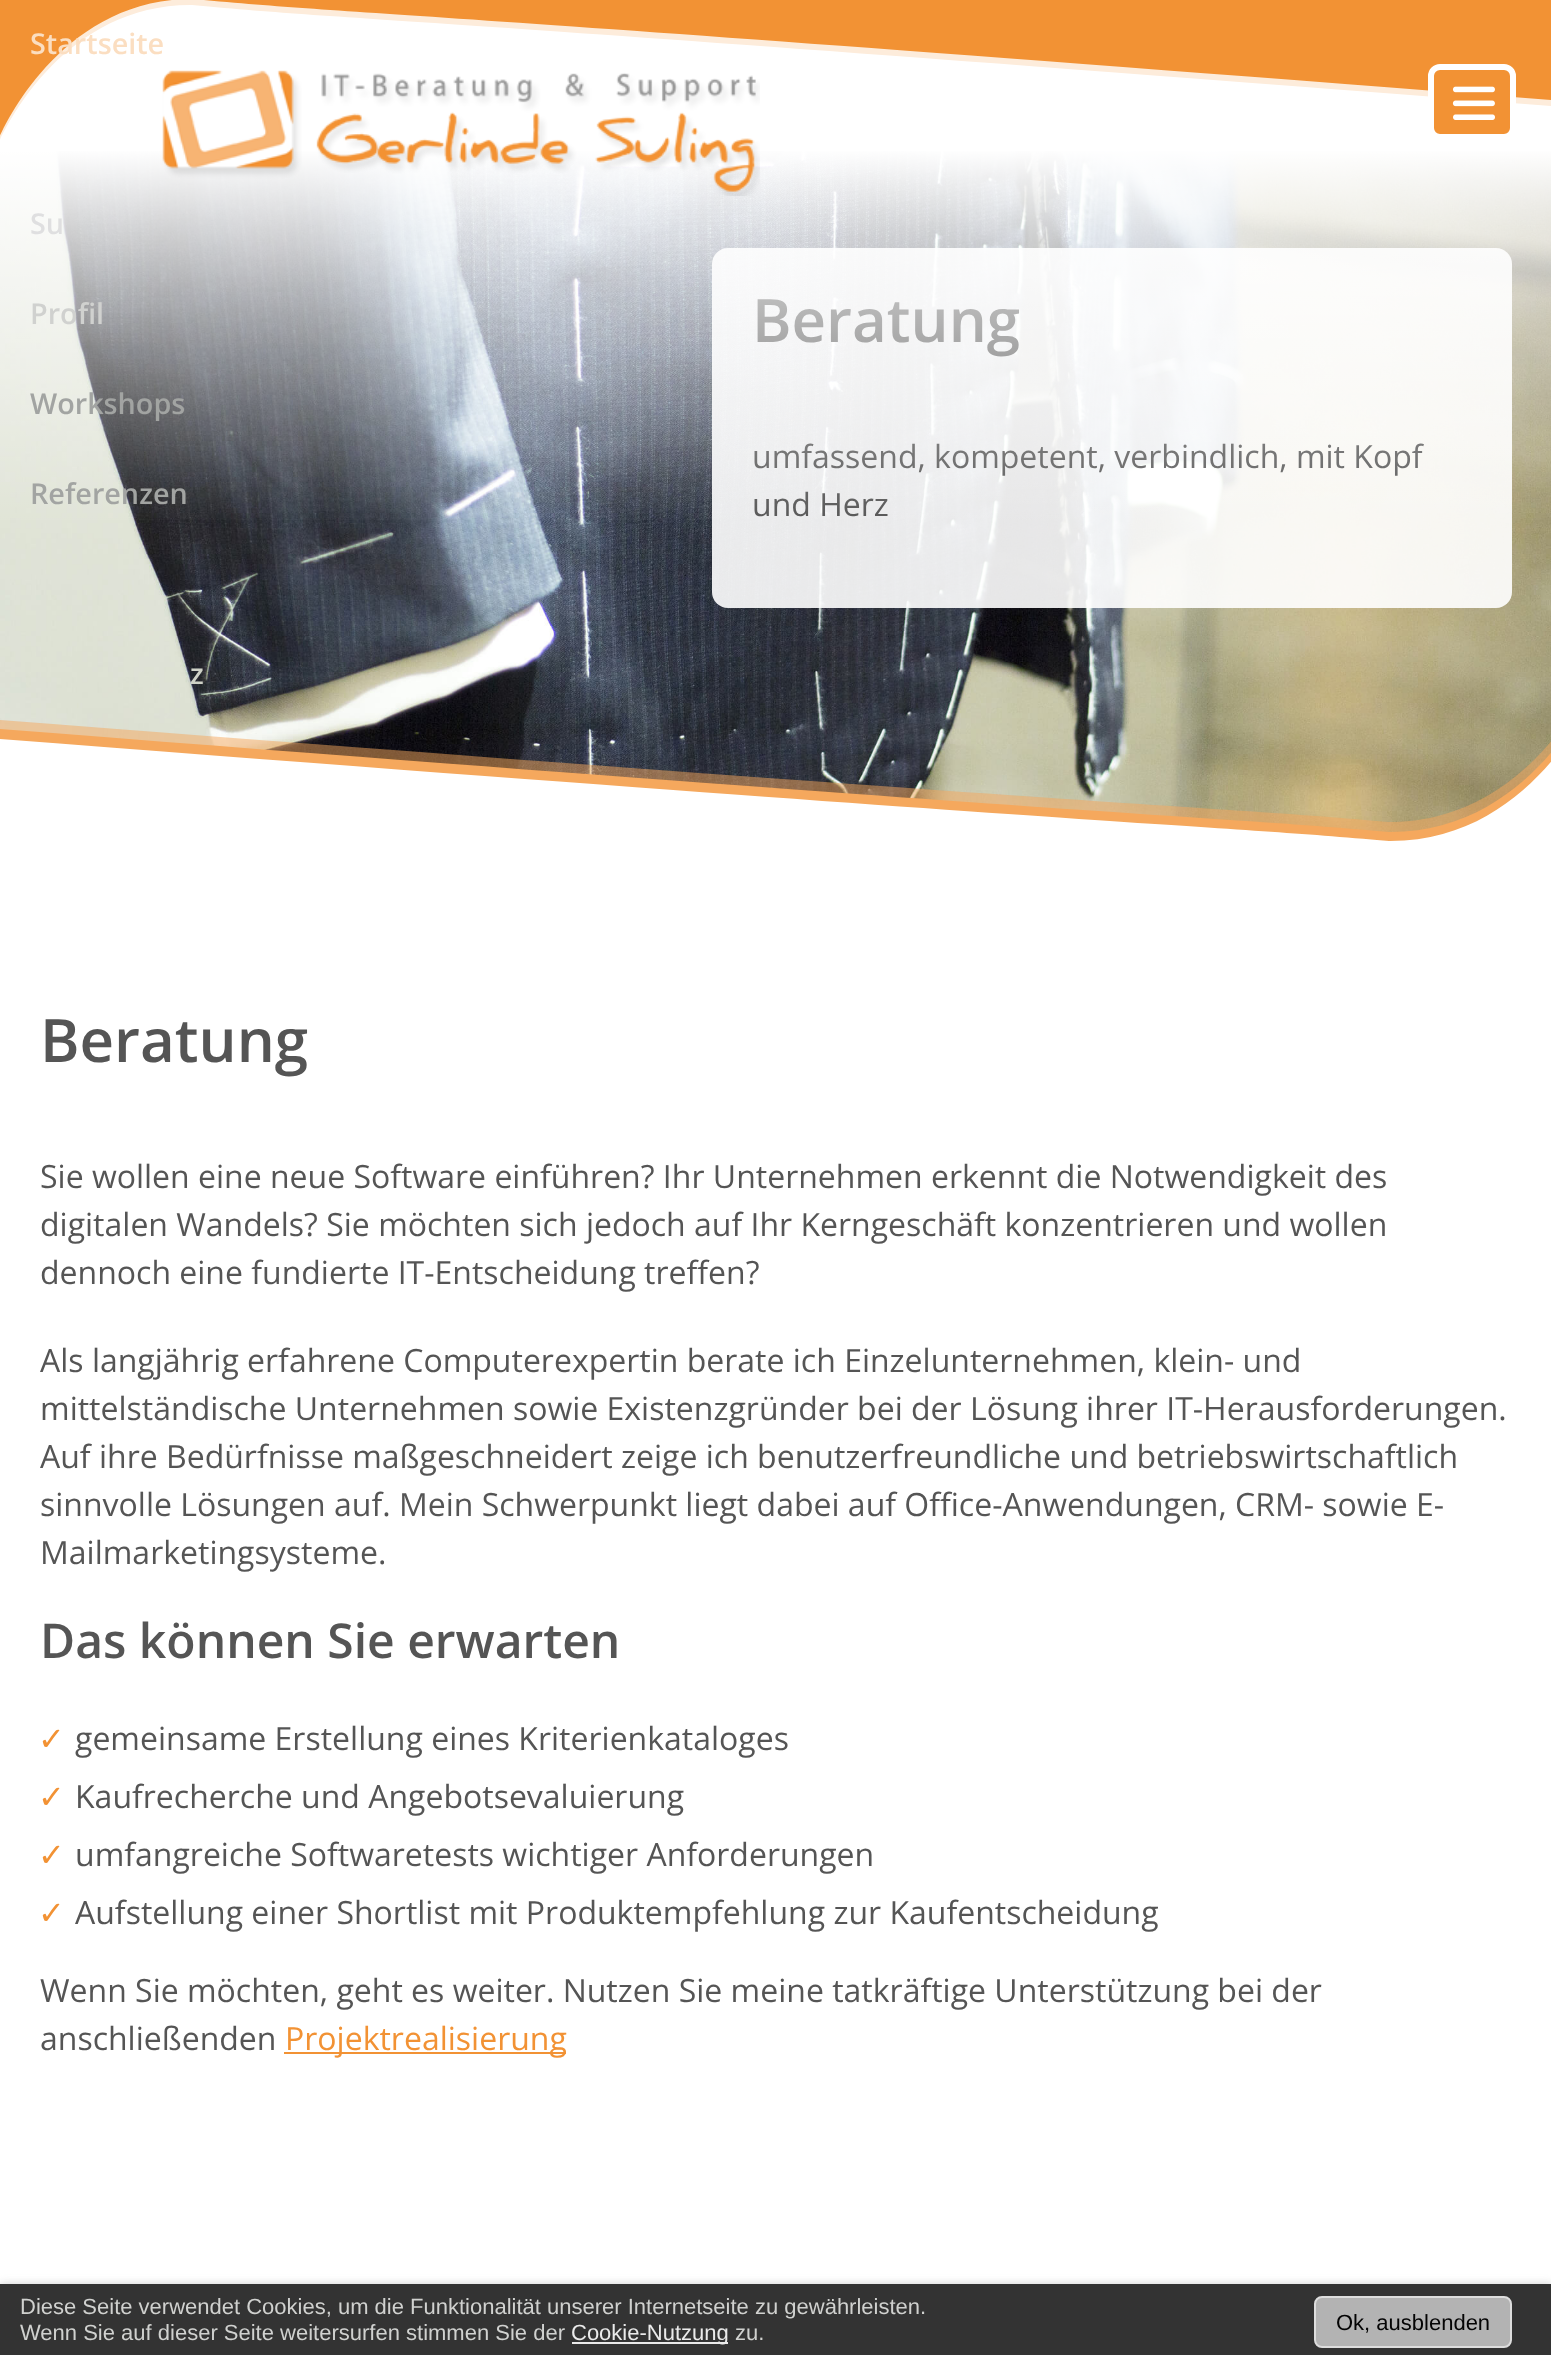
<!DOCTYPE html>
<meta charset="utf-8">
<style>body { margin: 0 } canvas { display: block }</style>
<canvas id="canvas" width="1551" height="2355"></canvas>
<script type="module">
  const canvas = document.getElementById("canvas");
  const ctx = canvas.getContext("2d");
  ctx.miterLimit = 4;
  ctx.fontKerning = "normal";
  async function loadImage(src) {
    const img = new Image();
    img.src = src;
    await img.decode();
    return img;
  }
  let gradient;

  ctx.fillStyle = "#ffffff";
  ctx.fillRect(0, 0, 1551, 2355);
  ctx.fillStyle = "#fdecdb";
  ctx.beginPath();
  ctx.moveTo(1551, -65);
  ctx.lineTo(-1, -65);
  ctx.lineTo(-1, 142);
  ctx.bezierCurveTo(-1, 142, 57, 4, 192, 5);
  ctx.bezierCurveTo(374, 22, 358, 13, 1551, 106);
  ctx.closePath();
  ctx.fill();
  ctx.fillStyle = "#f29234";
  ctx.beginPath();
  ctx.moveTo(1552, -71);
  ctx.lineTo(0, -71);
  ctx.lineTo(0, 136);
  ctx.bezierCurveTo(0, 136, 58, -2, 193, -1);
  ctx.bezierCurveTo(375, 16, 359, 7, 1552, 100);
  ctx.closePath();
  ctx.fill();
  ctx.font = "600 28.75px Open Sans";
  ctx.fillStyle = "#fbdec1";
  ctx.fillText("Startseite", 30, 54);
  ctx.drawImage(await loadImage("img3.png"), 0, 151, 1551, 681);
  ctx.fillStyle = "rgba(255, 255, 255, 0.9)";
  ctx.beginPath();
  ctx.roundRect(712, 248, 800, 360, 16);
  ctx.fill();
  ctx.font = "600 60px Open Sans";
  ctx.fillStyle = "#555555";
  ctx.fillText("Beratung", 752, 342);
  ctx.font = "32px Open Sans";
  ctx.fillText("umfassend, kompetent, verbindlich, mit Kopf", 752, 468);
  ctx.fillText("und Herz", 752, 516);
  gradient = ctx.createLinearGradient(776, 48, 776, 528);
  gradient.addColorStop(0.16, "#ffffff");
  gradient.addColorStop(0.21, "#ffffff");
  gradient.addColorStop(1, "rgba(255, 255, 255, 0)");
  ctx.fillStyle = gradient;
  ctx.fillRect(0, 151, 1551, 369);
  ctx.font = "600 28.75px Open Sans";
  ctx.fillStyle = "#dfdfe0";
  ctx.fillText("Su", 30, 234);
  ctx.fillStyle = "#d0d1cf";
  ctx.fillText("Profil", 30, 324);
  ctx.fillStyle = "#a2a4a2";
  ctx.fillText("Workshops", 30, 414);
  ctx.fillText("Referenzen", 30, 504);
  ctx.fillStyle = "#cfd2c7";
  ctx.fillText("z", 190, 684);
  ctx.fillStyle = "#f29234";
  ctx.beginPath();
  ctx.roundRect(1431, 67, 82, 70, 9);
  ctx.fill();
  ctx.strokeStyle = "#ffffff";
  ctx.lineWidth = 6;
  ctx.stroke();
  ctx.drawImage(await loadImage("img1.png"), 1452, 86, 43, 34);
  ctx.drawImage(await loadImage("img2.png"), 162, 70, 598, 126);
  ctx.save();
  ctx.beginPath();
  ctx.rect(0, 658, 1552, 190);
  ctx.clip();
  ctx.fillStyle = "rgba(245, 168, 93, 0.5)";
  ctx.beginPath();
  ctx.moveTo(-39, 896);
  ctx.lineTo(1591, 896);
  ctx.lineTo(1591, 679);
  ctx.bezierCurveTo(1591, 679, 1530, 823, 1388, 822);
  ctx.bezierCurveTo(1197, 805, 1214, 814, -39, 717);
  ctx.closePath();
  ctx.fill();
  ctx.fillStyle = "#f5a85d";
  ctx.beginPath();
  ctx.moveTo(-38, 906);
  ctx.lineTo(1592, 906);
  ctx.lineTo(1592, 689);
  ctx.bezierCurveTo(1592, 689, 1531, 833, 1389, 832);
  ctx.bezierCurveTo(1198, 815, 1215, 824, -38, 726);
  ctx.closePath();
  ctx.fill();
  ctx.fillStyle = "#ffffff";
  ctx.beginPath();
  ctx.moveTo(-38, 915);
  ctx.lineTo(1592, 915);
  ctx.lineTo(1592, 698);
  ctx.bezierCurveTo(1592, 698, 1531, 842, 1389, 841);
  ctx.bezierCurveTo(1198, 824, 1215, 833, -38, 736);
  ctx.closePath();
  ctx.fill();
  ctx.restore();
  ctx.font = "600 60px Open Sans";
  ctx.fillStyle = "#555555";
  ctx.fillText("Beratung", 40, 1062);
  ctx.font = "32px Open Sans";
  ctx.fillText("Sie wollen eine neue Software einführen? Ihr Unternehmen erkennt die Notwendigkeit des", 40, 1188);
  ctx.fillText("digitalen Wandels? Sie möchten sich jedoch auf Ihr Kerngeschäft konzentrieren und wollen", 40, 1236);
  ctx.fillText("dennoch eine fundierte IT-Entscheidung treffen?", 40, 1284);
  ctx.fillText("Als langjährig erfahrene Computerexpertin berate ich Einzelunternehmen, klein- und", 40, 1372);
  ctx.fillText("mittelständische Unternehmen sowie Existenzgründer bei der Lösung ihrer IT-Herausforderungen.", 40, 1420);
  ctx.fillText("Auf ihre Bedürfnisse maßgeschneidert zeige ich benutzerfreundliche und betriebswirtschaftlich", 40, 1468);
  ctx.fillText("sinnvolle Lösungen auf. Mein Schwerpunkt liegt dabei auf Office-Anwendungen, CRM- sowie E-", 40, 1516);
  ctx.fillText("Mailmarketingsysteme.", 40, 1564);
  ctx.font = "600 48px Open Sans";
  ctx.fillText("Das können Sie erwarten", 40, 1658);
  ctx.font = "32px DejaVu Sans";
  ctx.fillStyle = "#f29234";
  ctx.fillText("✓", 38, 1750);
  ctx.font = "32px Open Sans";
  ctx.fillStyle = "#555555";
  ctx.fillText("gemeinsame Erstellung eines Kriterienkataloges", 75, 1750);
  ctx.font = "32px DejaVu Sans";
  ctx.fillStyle = "#f29234";
  ctx.fillText("✓", 38, 1808);
  ctx.font = "32px Open Sans";
  ctx.fillStyle = "#555555";
  ctx.fillText("Kaufrecherche und Angebotsevaluierung", 75, 1808);
  ctx.font = "32px DejaVu Sans";
  ctx.fillStyle = "#f29234";
  ctx.fillText("✓", 38, 1866);
  ctx.font = "32px Open Sans";
  ctx.fillStyle = "#555555";
  ctx.fillText("umfangreiche Softwaretests wichtiger Anforderungen", 75, 1866);
  ctx.font = "32px DejaVu Sans";
  ctx.fillStyle = "#f29234";
  ctx.fillText("✓", 38, 1924);
  ctx.font = "32px Open Sans";
  ctx.fillStyle = "#555555";
  ctx.fillText("Aufstellung einer Shortlist mit Produktempfehlung zur Kaufentscheidung", 75, 1924);
  ctx.fillText("Wenn Sie möchten, geht es weiter. Nutzen Sie meine tatkräftige Unterstützung bei der", 40, 2002);
  ctx.fillText("anschließenden", 40, 2050);
  ctx.fillStyle = "#f29234";
  ctx.fillRect(284, 2052, 282, 2);
  ctx.fillText("Projektrealisierung", 285, 2050);
  ctx.fillStyle = "#d0d0d0";
  ctx.filter = "blur(4px)";
  ctx.beginPath();
  ctx.rect(0, 2284, 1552, 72);
  ctx.fill();
  ctx.filter = "none";
  ctx.fillStyle = "#333333";
  ctx.fillRect(0, 2284, 1551, 71);
  ctx.font = "22px Liberation Sans";
  ctx.fillStyle = "#d0d1cf";
  ctx.fillText("Diese Seite verwendet Cookies, um die Funktionalität unserer Internetseite zu gewährleisten.", 20, 2314);
  ctx.fillText("Wenn Sie auf dieser Seite weitersurfen stimmen Sie der", 20, 2340);
  ctx.fillStyle = "#eaeaea";
  ctx.fillRect(572, 2342, 156, 2);
  ctx.fillText("Cookie-Nutzung", 571, 2340);
  ctx.fillStyle = "#d0d1cf";
  ctx.fillText("zu.", 735, 2340);
  ctx.fillStyle = "#b3b3b3";
  ctx.beginPath();
  ctx.roundRect(1315, 2297, 196, 50, 7);
  ctx.fill();
  ctx.strokeStyle = "#dddddd";
  ctx.lineWidth = 2;
  ctx.stroke();
  ctx.fillStyle = "#040404";
  ctx.fillText("Ok, ausblenden", 1336, 2330);
</script>
